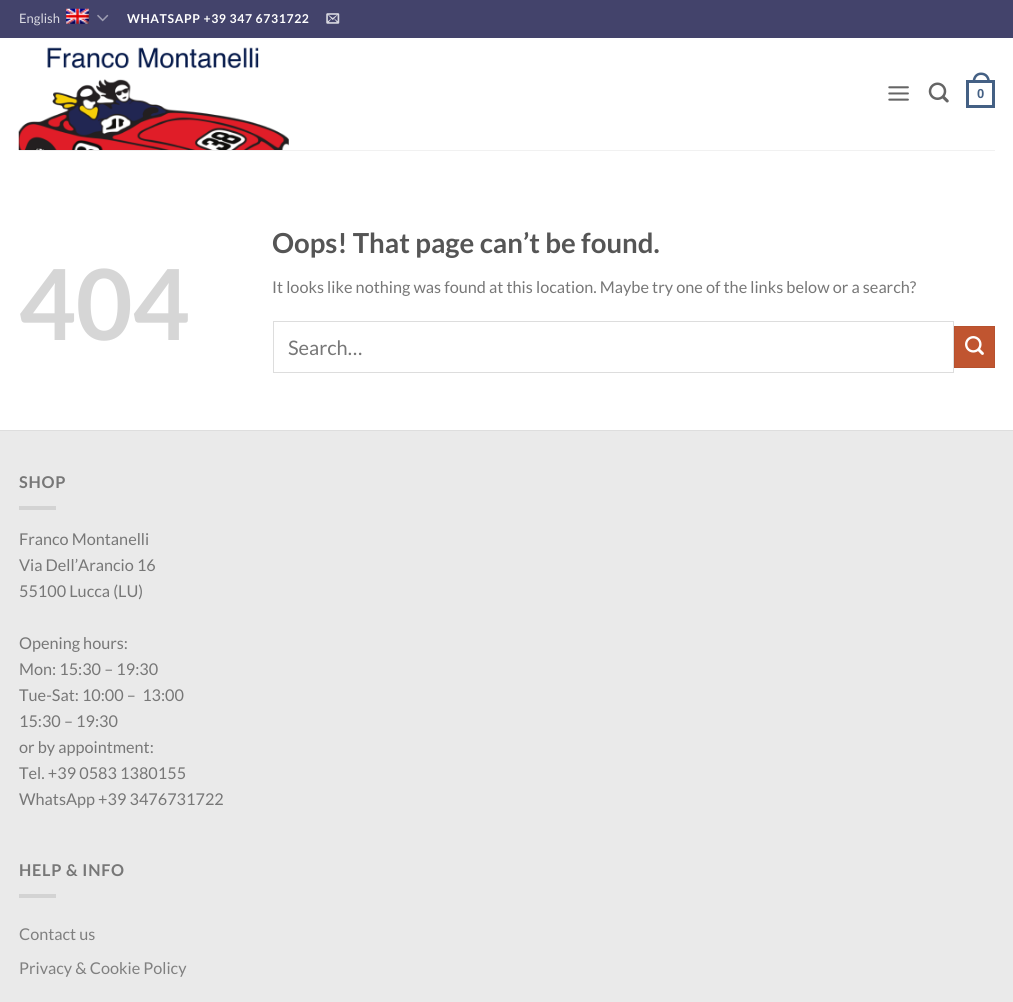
import math
import cairo

surface = cairo.ImageSurface(cairo.Format.RGB24, 1013, 1002)
ctx = cairo.Context(surface)
options = cairo.FontOptions()
options.set_hint_metrics(cairo.HintMetrics.OFF)
options.set_hint_style(cairo.HintStyle.NONE)
ctx.set_font_options(options)
ctx.set_miter_limit(4)


def ink(r, g, b):
    ctx.set_source_rgb(r / 255, g / 255, b / 255)


def write(x, y, s, family, size, color, bold=False, italic=False):
    ctx.select_font_face(family, cairo.FontSlant.ITALIC if italic else cairo.FontSlant.NORMAL, cairo.FontWeight.BOLD if bold else cairo.FontWeight.NORMAL)
    ctx.set_font_size(size)
    ink(*color)
    ctx.move_to(x, y)
    ctx.show_text(s)


def write_spaced(x, y, s, letter, word):
    ctx.move_to(x, y)
    for ch in s:
        ctx.show_text(ch)
        ctx.rel_move_to(letter + word * (ch == ' '), 0)


def block(x, y, w, h, *color):
    ink(*color)
    ctx.rectangle(x, y, w, h)
    ctx.fill()


def paste(path, x, y, w, h):
    ctx.save()
    ctx.set_source_surface(cairo.ImageSurface.create_from_png(path), x, y)
    ctx.rectangle(x, y, w, h)
    ctx.fill()
    ctx.restore()


s1 = dict(family="Lato", size=13, color=(217, 217, 225))
s2 = dict(family="Liberation Sans", size=13, color=(68, 96, 132), bold=True)
s3 = dict(family="Lato", size=98, color=(214, 214, 214), bold=True)
s4 = dict(family="Lato", size=27.6, color=(85, 85, 85), bold=True)
s5 = dict(family="Lato", size=16.25, color=(119, 119, 119))
s6 = dict(family="Lato", size=20, color=(119, 119, 119))
s7 = dict(family="Lato", size=16.25, color=(128, 128, 128))

ink(255, 255, 255)
ctx.paint()
block(0, 0, 1013, 38, 67, 67, 107)
write(19, 23, "English", **s1)
paste("pic1.png", 66, 8, 23, 16)
paste("pic2.png", 97, 14, 12, 8)
ctx.select_font_face("Lato", cairo.FontSlant.NORMAL, cairo.FontWeight.BOLD)
ctx.set_font_size(12.25)
ink(255, 255, 255)
write_spaced(127, 23, "WHATSAPP +39 347 6731722", 0.6, 0)
paste("pic3.png", 326, 13, 14, 11)
paste("pic4.png", 18, 47, 271, 103)
paste("pic5.png", 888, 86, 21, 15)
paste("pic6.png", 928, 82, 21, 21)
ctx.rectangle(967.5, 81.5, 26, 25)
ink(68, 96, 132)
ctx.set_line_width(3)
ctx.stroke()
ctx.set_fill_rule(cairo.FillRule.EVEN_ODD)
ctx.new_path()
ctx.move_to(981, 72.5)
ctx.curve_to(987, 72.5, 990, 77, 990, 82.5)
ctx.line_to(972.5, 82.5)
ctx.curve_to(972.5, 77, 975.5, 72.5, 981, 72.5)
ctx.close_path()
ctx.move_to(981, 75)
ctx.curve_to(985.5, 75, 987.5, 78.5, 987.5, 82.5)
ctx.line_to(975, 82.5)
ctx.curve_to(975, 78.5, 977, 75, 981, 75)
ctx.close_path()
ctx.fill()
write(977, 98, "0", **s2)
block(19, 150, 976, 1, 241, 241, 241)
write(19, 340, "404", **s3)
write(272, 253, "Oops! That page can’t be found.", **s4)
write(272, 293, "It looks like nothing was found at this location. Maybe try one of the links below or a search?", **s5)
ctx.rectangle(273.5, 321.5, 680, 51)
ink(221, 221, 221)
ctx.set_line_width(1)
ctx.stroke()
write(288, 355, "Search…", **s6)
ink(192, 85, 48)
ctx.rectangle(954.5, 326.5, 40, 41)
ctx.fill_preserve()
ink(182, 81, 46)
ctx.stroke()
paste("pic7.png", 965, 336, 19, 19)
block(0, 431, 1013, 571, 234, 234, 234)
block(0, 430, 1013, 1, 222, 222, 222)
ctx.select_font_face("Lato", cairo.FontSlant.NORMAL, cairo.FontWeight.BOLD)
ctx.set_font_size(16.25)
ink(119, 119, 119)
write_spaced(19, 488, "SHOP", 0.75, 0)
block(19, 506, 37, 4, 211, 211, 211)
write(19, 545, "Franco Montanelli", **s5)
write(19, 571, "Via Dell’Arancio 16", **s5)
write(19, 597, "55100 Lucca (LU)", **s5)
write(19, 649, "Opening hours:", **s5)
write(19, 675, "Mon: 15:30 – 19:30", **s5)
write(19, 701, "Tue-Sat: 10:00 –  13:00", **s5)
write(19, 727, "15:30 – 19:30", **s5)
write(19, 753, "or by appointment:", **s5)
write(19, 779, "Tel. +39 0583 1380155", **s5)
write(19, 805, "WhatsApp +39 3476731722", **s5)
ctx.select_font_face("Lato", cairo.FontSlant.NORMAL, cairo.FontWeight.BOLD)
write_spaced(19, 876, "HELP & INFO", 0.75, 0)
block(19, 894, 37, 4, 211, 211, 211)
write(19, 940, "Contact us", **s7)
write(19, 974, "Privacy & Cookie Policy", **s7)
surface.write_to_png("screenshot.png")
